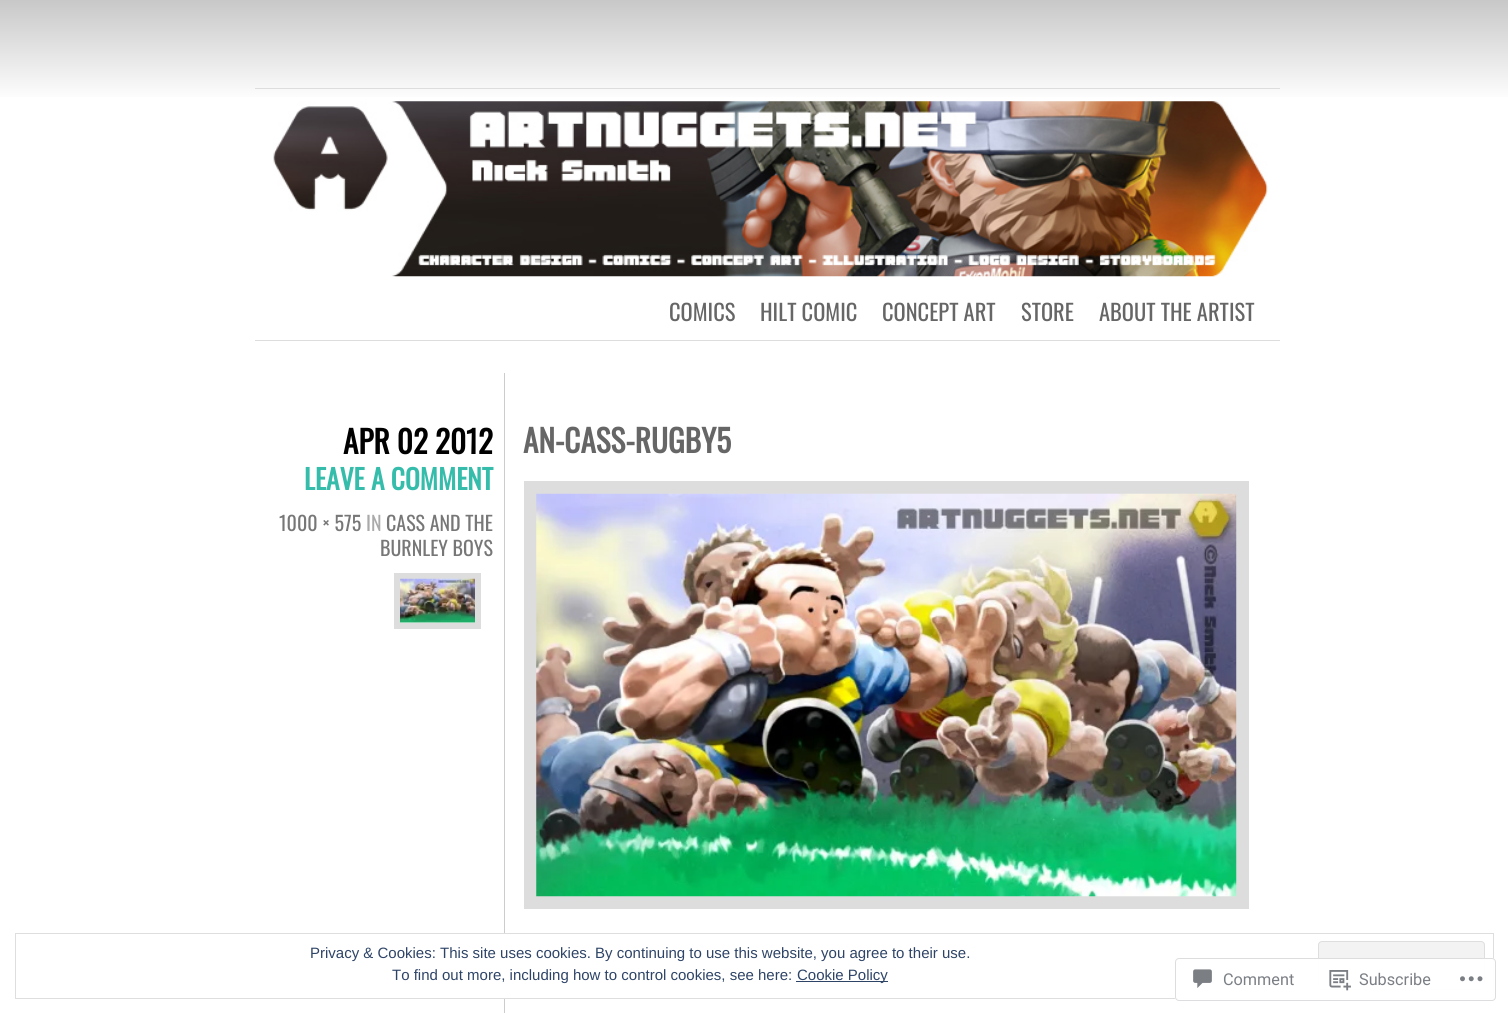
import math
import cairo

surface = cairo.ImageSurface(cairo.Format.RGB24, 1508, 1013)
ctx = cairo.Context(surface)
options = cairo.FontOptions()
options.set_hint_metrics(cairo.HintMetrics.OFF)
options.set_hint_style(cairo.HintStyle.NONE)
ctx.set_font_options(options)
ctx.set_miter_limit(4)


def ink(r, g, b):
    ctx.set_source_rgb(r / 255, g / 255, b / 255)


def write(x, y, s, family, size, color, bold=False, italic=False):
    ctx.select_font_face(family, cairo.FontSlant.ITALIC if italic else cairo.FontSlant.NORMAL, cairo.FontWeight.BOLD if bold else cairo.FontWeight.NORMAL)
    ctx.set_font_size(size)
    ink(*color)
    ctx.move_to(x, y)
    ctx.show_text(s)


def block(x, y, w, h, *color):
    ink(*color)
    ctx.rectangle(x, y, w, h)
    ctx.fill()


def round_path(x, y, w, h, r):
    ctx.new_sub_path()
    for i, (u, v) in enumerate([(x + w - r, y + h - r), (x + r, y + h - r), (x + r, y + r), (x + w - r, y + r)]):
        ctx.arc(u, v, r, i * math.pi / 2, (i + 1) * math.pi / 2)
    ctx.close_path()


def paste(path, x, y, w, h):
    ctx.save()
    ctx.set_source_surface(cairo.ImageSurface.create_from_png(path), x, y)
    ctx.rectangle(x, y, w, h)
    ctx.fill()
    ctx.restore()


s1 = dict(family="Oswald", size=22.5, color=(102, 102, 102))
s2 = dict(family="Oswald", size=31.25, color=(0, 0, 0), bold=True)
s3 = dict(family="Oswald", size=27.5, color=(54, 188, 171), bold=True)
s4 = dict(family="Oswald", size=20, color=(119, 119, 119))
s5 = dict(family="Oswald", size=20, color=(170, 170, 170))
s6 = dict(family="Oswald", size=31.25, color=(102, 102, 102), bold=True)
s7 = dict(family="Liberation Sans", size=15, color=(46, 68, 103))
s8 = dict(family="Roboto", size=16.25, color=(123, 127, 133))

ink(255, 255, 255)
ctx.paint()
gradient = cairo.LinearGradient(754, 0, 754, 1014)
gradient.add_color_stop_rgba(0, 0.784, 0.784, 0.784, 1)
gradient.add_color_stop_rgba(0.1, 1, 1, 1, 1)
ctx.set_source(gradient)
ctx.rectangle(0, 0, 1508, 97)
ctx.fill()
block(255, 88, 1025, 1, 221, 221, 221)
block(255, 340, 1025, 1, 221, 221, 221)
paste("pic1.png", 273, 101, 995, 176)
write(669, 321, "COMICS", **s1)
write(760, 321, "HILT COMIC", **s1)
write(882, 321, "CONCEPT ART", **s1)
write(1021, 321, "STORE", **s1)
write(1099, 321, "ABOUT THE ARTIST", **s1)
block(504, 373, 1, 640, 204, 204, 204)
write(343, 454, "APR 02 2012", **s2)
write(304, 490, "LEAVE A COMMENT", **s3)
write(279, 531, "1000 × 575", **s4)
write(366, 531, "IN", **s5)
write(386, 531, "CASS AND THE", **s4)
write(380, 556, "BURNLEY BOYS", **s4)
ctx.rectangle(397, 576, 81, 50)
ink(221, 221, 221)
ctx.set_line_width(6)
ctx.stroke()
paste("pic2.png", 400, 578, 75, 45)
write(523, 453, "AN-CASS-RUGBY5", **s6)
ctx.rectangle(530.5, 487.5, 712, 415)
ink(221, 221, 221)
ctx.set_line_width(13)
ctx.stroke()
paste("pic3.png", 536, 493, 701, 404)
block(504, 934, 1, 64, 255, 255, 255)
ctx.rectangle(15.5, 933.5, 1478, 65)
ink(222, 222, 222)
ctx.set_line_width(1)
ctx.stroke()
write(310, 958, "Privacy & Cookies: This site uses cookies. By continuing to use this website, you agree to their use.", **s7)
ink(243, 243, 243)
round_path(1318.5, 941.5, 166, 48, 3.5)
ctx.fill_preserve()
ink(222, 222, 222)
ctx.stroke()
write(392, 980, "To find out more, including how to control cookies, see here:", **s7)
block(796, 981, 92, 1, 46, 68, 103)
write(797, 980, "Cookie Policy", **s7)
ctx.set_source_rgba(1, 1, 1, 0.98)
round_path(1175, 958, 321, 43, 4)
ctx.fill()
round_path(1175.5, 958.5, 320, 42, 3.5)
ctx.set_source_rgba(0.863, 0.863, 0.871, 0.98)
ctx.stroke()
paste("pic4.png", 1193, 969, 19, 19)
write(1223, 985, "Comment", **s8)
paste("pic5.png", 1329, 970, 22, 21)
write(1359, 985, "Subscribe", **s8)
paste("pic6.png", 1460, 976, 23, 6)
surface.write_to_png("screenshot.png")
